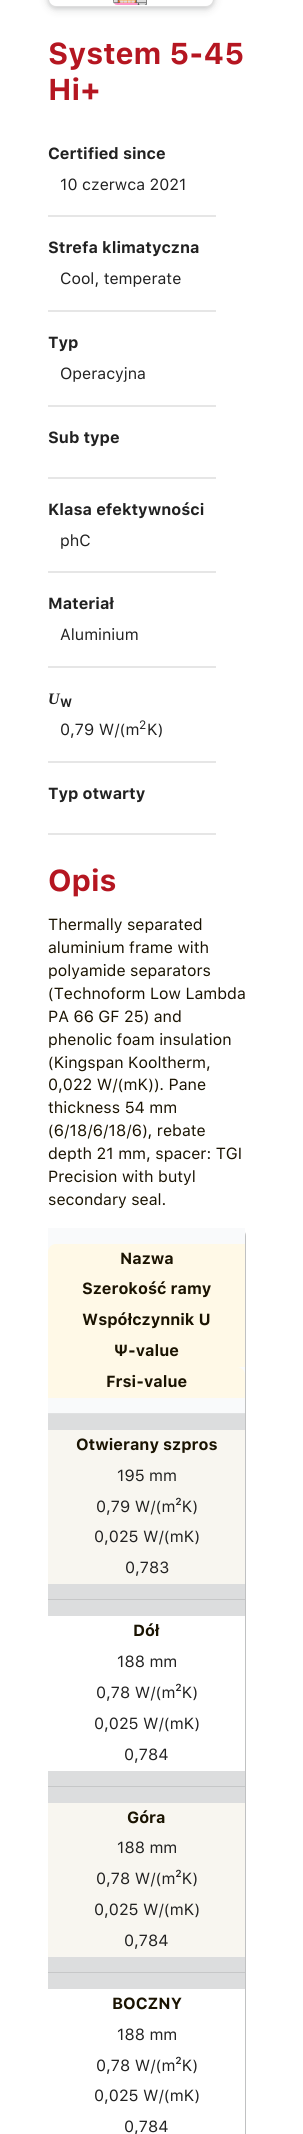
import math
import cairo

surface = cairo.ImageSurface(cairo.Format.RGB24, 303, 2134)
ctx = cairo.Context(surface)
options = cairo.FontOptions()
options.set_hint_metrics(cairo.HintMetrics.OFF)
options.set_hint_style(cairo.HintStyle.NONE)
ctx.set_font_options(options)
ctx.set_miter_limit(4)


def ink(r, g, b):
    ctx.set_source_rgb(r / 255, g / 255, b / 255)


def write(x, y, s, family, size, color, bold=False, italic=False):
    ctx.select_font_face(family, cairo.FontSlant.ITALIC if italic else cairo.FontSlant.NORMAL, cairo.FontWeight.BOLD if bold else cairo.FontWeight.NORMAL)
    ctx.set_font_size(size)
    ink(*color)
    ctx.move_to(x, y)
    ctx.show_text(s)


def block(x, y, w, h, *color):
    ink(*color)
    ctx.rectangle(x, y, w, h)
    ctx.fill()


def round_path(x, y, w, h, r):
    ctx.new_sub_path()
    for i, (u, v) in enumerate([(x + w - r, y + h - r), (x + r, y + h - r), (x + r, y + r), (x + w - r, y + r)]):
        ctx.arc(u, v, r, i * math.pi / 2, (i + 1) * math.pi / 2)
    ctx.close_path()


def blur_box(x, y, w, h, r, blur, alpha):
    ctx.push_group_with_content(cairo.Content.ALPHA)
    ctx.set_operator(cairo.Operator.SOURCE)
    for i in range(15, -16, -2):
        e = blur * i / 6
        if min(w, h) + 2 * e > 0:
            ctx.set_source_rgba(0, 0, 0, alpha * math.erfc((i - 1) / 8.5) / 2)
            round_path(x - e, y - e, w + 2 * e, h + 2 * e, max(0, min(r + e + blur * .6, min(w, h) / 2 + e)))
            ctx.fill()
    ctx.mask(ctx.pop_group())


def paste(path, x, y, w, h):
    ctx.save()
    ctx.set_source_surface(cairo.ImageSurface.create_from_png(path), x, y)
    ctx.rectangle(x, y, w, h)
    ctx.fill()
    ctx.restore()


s1 = dict(family="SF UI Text", size=30, color=(181, 22, 33), bold=True)
s2 = dict(family="SF UI Text", size=16, color=(33, 33, 33), bold=True)
s3 = dict(family="SF UI Text", size=16, color=(33, 33, 33))
s4 = dict(family="Liberation Serif", size=16, color=(33, 33, 33), bold=True, italic=True)
s5 = dict(family="SF UI Text", size=12, color=(33, 33, 33), bold=True)
s6 = dict(family="SF UI Text", size=12, color=(33, 33, 33))
s7 = dict(family="SF UI Text", size=16, color=(26, 19, 1))
s8 = dict(family="SF UI Text", size=16, color=(26, 19, 1), bold=True)

ink(255, 255, 255)
ctx.paint()
ink(34, 36, 38)
blur_box(48, -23, 166, 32, 8, 5, 0.15)
blur_box(48, -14, 166, 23, 8, 2, 0.12)
ink(255, 255, 255)
round_path(48, -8, 166, 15, 8)
ctx.fill()
round_path(48.5, -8.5, 165, 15, 7.5)
ctx.set_source_rgba(0.133, 0.141, 0.149, 0.15)
ctx.set_line_width(1)
ctx.stroke()
paste("pic1.png", 113, 0, 34, 5)
write(48, 64, "System 5-45", **s1)
write(48, 100, "Hi+", **s1)
block(48, 215, 168, 2, 230, 230, 230)
write(48, 159, "Certified since", **s2)
write(60, 190, "10 czerwca 2021", **s3)
block(48, 310, 168, 2, 230, 230, 230)
write(48, 253, "Strefa klimatyczna", **s2)
write(60, 284, "Cool, temperate", **s3)
block(48, 405, 168, 2, 230, 230, 230)
write(48, 348, "Typ", **s2)
write(60, 379, "Operacyjna", **s3)
block(48, 477, 168, 2, 230, 230, 230)
write(48, 443, "Sub type", **s2)
block(48, 571, 168, 2, 230, 230, 230)
write(48, 515, "Klasa efektywności", **s2)
write(60, 546, "phC", **s3)
block(48, 666, 168, 2, 230, 230, 230)
write(48, 609, "Materiał", **s2)
write(60, 640, "Aluminium", **s3)
block(48, 761, 168, 2, 230, 230, 230)
write(48, 704, "U", **s4)
write(60, 707, "W", **s5)
write(60, 735, "0,79 W/(m", **s3)
write(139, 729, "2", **s6)
write(147, 735, "K)", **s3)
block(48, 833, 168, 2, 230, 230, 230)
write(48, 799, "Typ otwarty", **s2)
write(48, 891, "Opis", **s1)
write(48, 930, "Thermally separated", **s7)
write(48, 953, "aluminium frame with", **s7)
write(48, 976, "polyamide separators", **s7)
write(48, 999, "(Technoform Low Lambda", **s7)
write(48, 1022, "PA 66 GF 25) and", **s7)
write(48, 1045, "phenolic foam insulation", **s7)
write(48, 1068, "(Kingspan Kooltherm,", **s7)
write(48, 1090, "0,022 W/(mK)). Pane", **s7)
write(48, 1113, "thickness 54 mm", **s7)
write(48, 1136, "(6/18/6/18/6), rebate", **s7)
write(48, 1159, "depth 21 mm, spacer: TGI", **s7)
write(48, 1182, "Precision with butyl", **s7)
write(48, 1205, "secondary seal.", **s7)
ink(220, 221, 222)
round_path(48, 1228, 198, 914, 8)
ctx.fill()
ctx.set_source_rgba(0.133, 0.141, 0.149, 0.15)
ctx.set_fill_rule(cairo.FillRule.EVEN_ODD)
ctx.new_path()
ctx.move_to(56, 1228)
ctx.line_to(238, 1228)
ctx.curve_to(242, 1228, 246, 1232, 246, 1236)
ctx.line_to(246, 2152)
ctx.curve_to(246, 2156, 242, 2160, 238, 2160)
ctx.line_to(56, 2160)
ctx.curve_to(52, 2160, 48, 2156, 48, 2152)
ctx.line_to(48, 1236)
ctx.curve_to(48, 1232, 52, 1228, 56, 1228)
ctx.close_path()
ctx.move_to(56, 1228)
ctx.line_to(238, 1228)
ctx.curve_to(242, 1228, 245, 1232, 245, 1236)
ctx.line_to(245, 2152)
ctx.curve_to(245, 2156, 242, 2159, 238, 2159)
ctx.line_to(56, 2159)
ctx.curve_to(52, 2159, 48, 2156, 48, 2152)
ctx.line_to(48, 1236)
ctx.curve_to(48, 1232, 52, 1228, 56, 1228)
ctx.close_path()
ctx.fill()
block(48, 1228, 197, 185, 249, 250, 251)
block(48, 1413, 197, 1, 224, 225, 226)
ink(255, 249, 231)
ctx.new_path()
ctx.move_to(56, 1244)
ctx.line_to(245, 1244)
ctx.line_to(245, 1274)
ctx.line_to(48, 1274)
ctx.line_to(48, 1252)
ctx.curve_to(48, 1247.5, 51.5, 1244, 56, 1244)
ctx.close_path()
ctx.fill()
write(120, 1264, "Nazwa", **s8)
block(48, 1274, 197, 93, 255, 249, 231)
write(82, 1294, "Szerokość ramy", **s8)
write(82, 1325, "Współczynnik U", **s8)
write(114, 1356, "Ψ-value", **s8)
ink(255, 249, 231)
ctx.new_path()
ctx.move_to(48, 1367)
ctx.line_to(237, 1367)
ctx.curve_to(241.5, 1367, 245, 1370.5, 245, 1375)
ctx.line_to(245, 1398)
ctx.line_to(48, 1398)
ctx.close_path()
ctx.fill()
write(106, 1387, "Frsi-value", **s8)
block(48, 1599, 197, 1, 198, 199, 200)
block(48, 1430, 197, 154, 248, 246, 240)
write(76, 1450, "Otwierany szpros", **s8)
write(117, 1481, "195 mm", **s3)
write(96, 1512, "0,79 W/(m²K)", **s3)
write(94, 1542, "0,025 W/(mK)", **s3)
write(125, 1573, "0,783", **s3)
block(48, 1786, 197, 1, 198, 199, 200)
block(48, 1616, 197, 155, 255, 255, 255)
write(133, 1636, "Dół", **s8)
write(117, 1667, "188 mm", **s3)
write(96, 1698, "0,78 W/(m²K)", **s3)
write(94, 1729, "0,025 W/(mK)", **s3)
write(124, 1760, "0,784", **s3)
block(48, 1972, 197, 1, 198, 199, 200)
block(48, 1803, 197, 154, 248, 246, 240)
write(127, 1823, "Góra", **s8)
write(117, 1853, "188 mm", **s3)
write(96, 1884, "0,78 W/(m²K)", **s3)
write(94, 1915, "0,025 W/(mK)", **s3)
write(124, 1946, "0,784", **s3)
block(48, 1989, 197, 145, 255, 255, 255)
write(112, 2009, "BOCZNY", **s8)
write(117, 2040, "188 mm", **s3)
write(96, 2071, "0,78 W/(m²K)", **s3)
write(94, 2101, "0,025 W/(mK)", **s3)
write(124, 2132, "0,784", **s3)
surface.write_to_png("screenshot.png")
